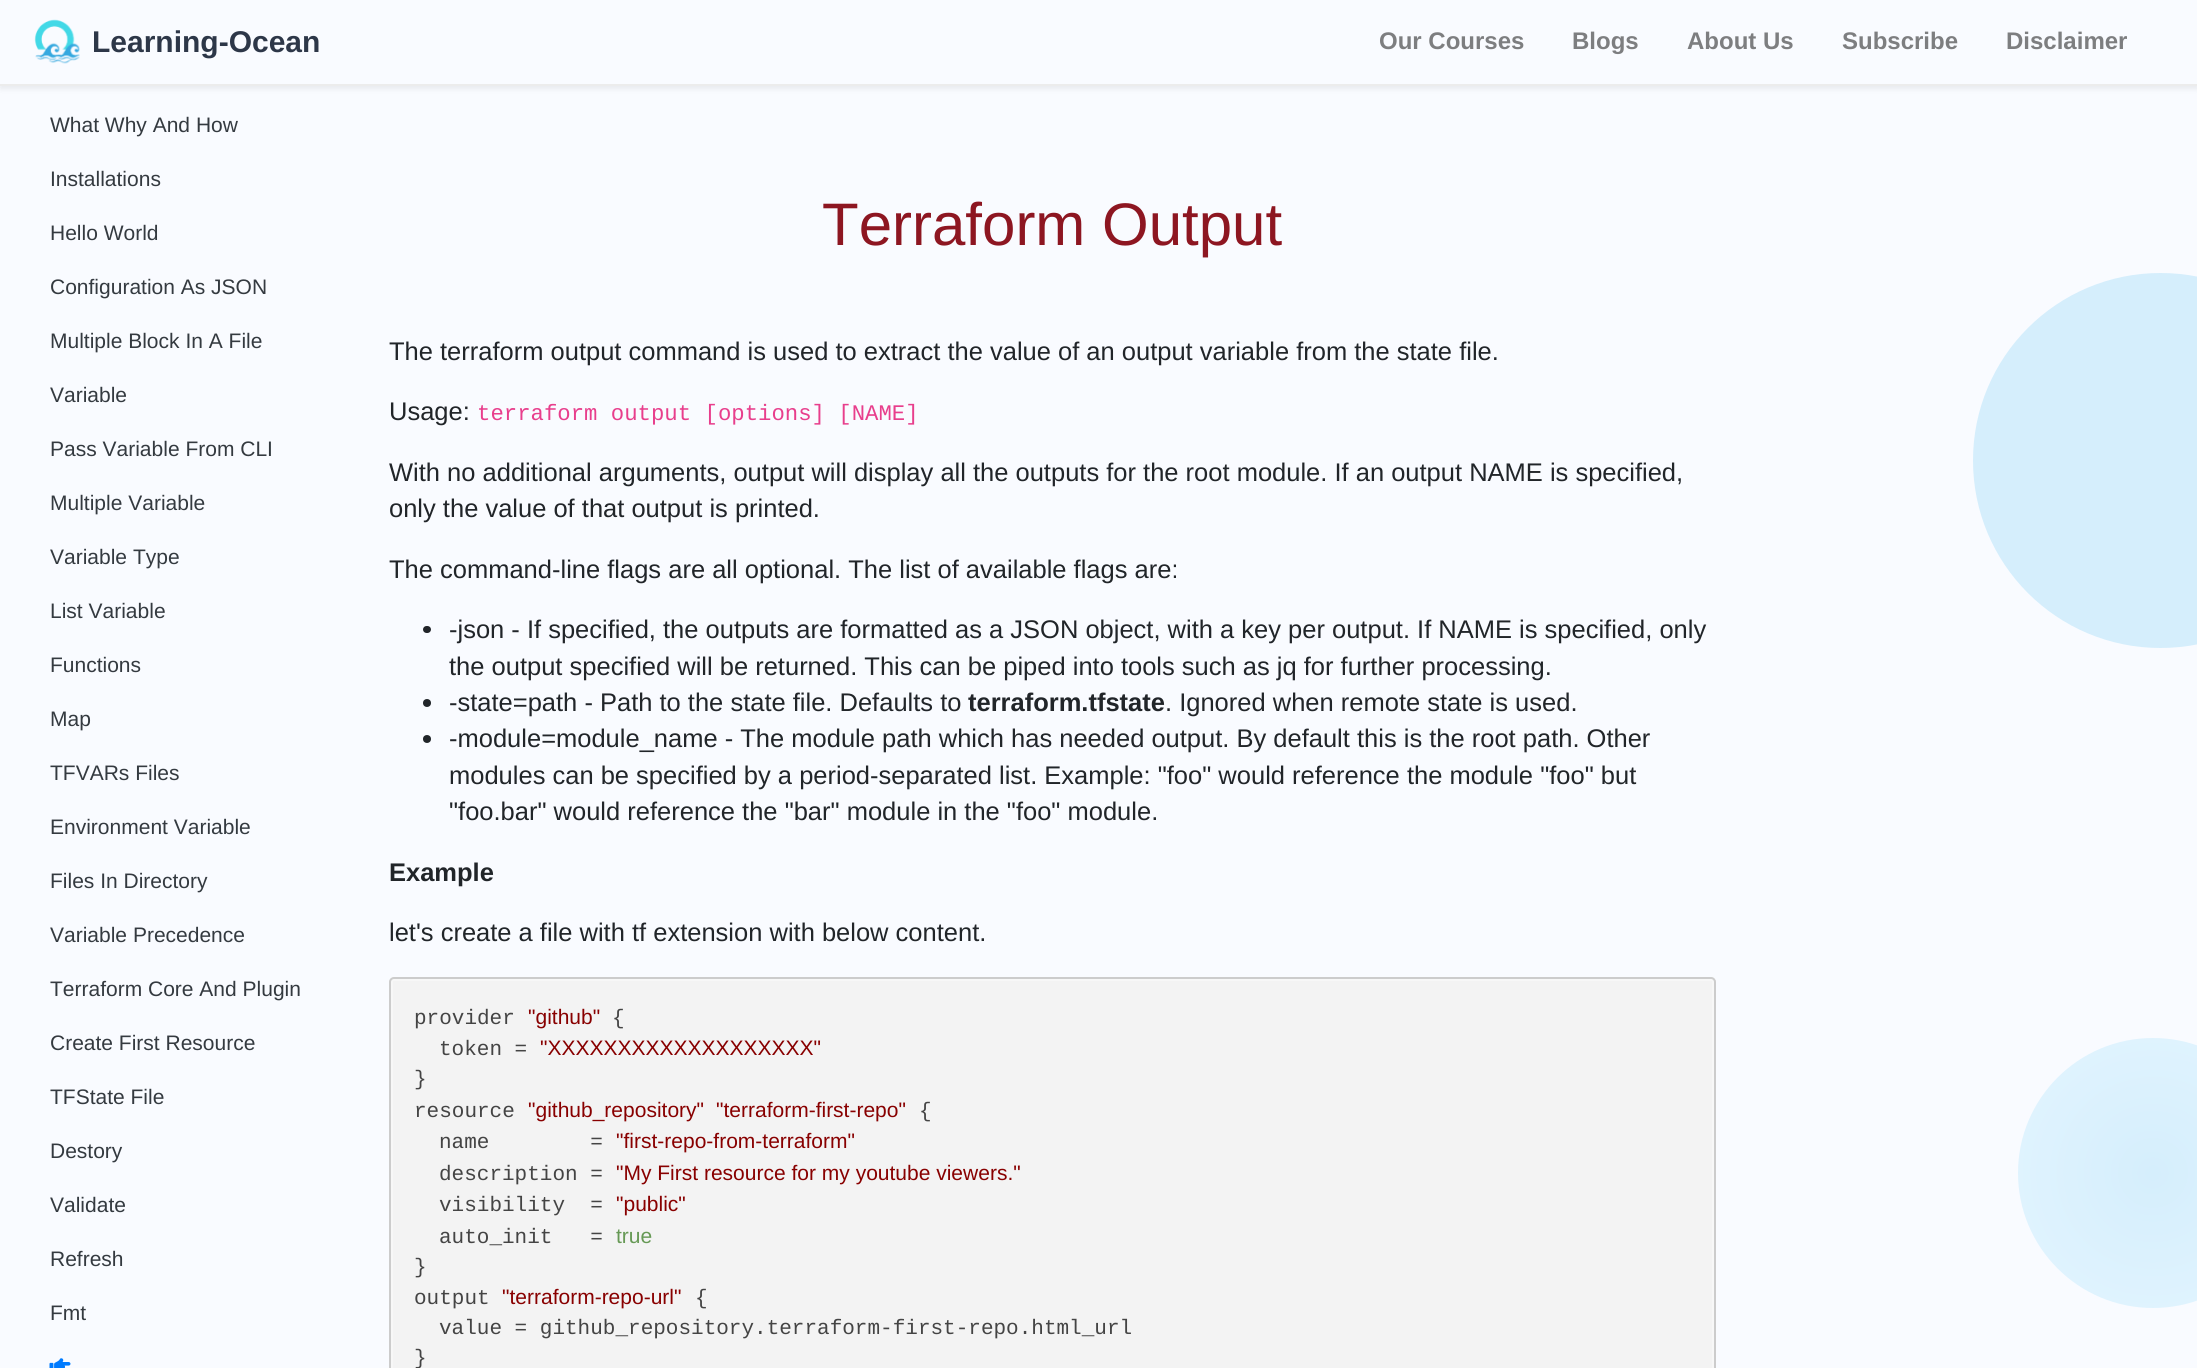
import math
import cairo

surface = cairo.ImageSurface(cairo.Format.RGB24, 2197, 1368)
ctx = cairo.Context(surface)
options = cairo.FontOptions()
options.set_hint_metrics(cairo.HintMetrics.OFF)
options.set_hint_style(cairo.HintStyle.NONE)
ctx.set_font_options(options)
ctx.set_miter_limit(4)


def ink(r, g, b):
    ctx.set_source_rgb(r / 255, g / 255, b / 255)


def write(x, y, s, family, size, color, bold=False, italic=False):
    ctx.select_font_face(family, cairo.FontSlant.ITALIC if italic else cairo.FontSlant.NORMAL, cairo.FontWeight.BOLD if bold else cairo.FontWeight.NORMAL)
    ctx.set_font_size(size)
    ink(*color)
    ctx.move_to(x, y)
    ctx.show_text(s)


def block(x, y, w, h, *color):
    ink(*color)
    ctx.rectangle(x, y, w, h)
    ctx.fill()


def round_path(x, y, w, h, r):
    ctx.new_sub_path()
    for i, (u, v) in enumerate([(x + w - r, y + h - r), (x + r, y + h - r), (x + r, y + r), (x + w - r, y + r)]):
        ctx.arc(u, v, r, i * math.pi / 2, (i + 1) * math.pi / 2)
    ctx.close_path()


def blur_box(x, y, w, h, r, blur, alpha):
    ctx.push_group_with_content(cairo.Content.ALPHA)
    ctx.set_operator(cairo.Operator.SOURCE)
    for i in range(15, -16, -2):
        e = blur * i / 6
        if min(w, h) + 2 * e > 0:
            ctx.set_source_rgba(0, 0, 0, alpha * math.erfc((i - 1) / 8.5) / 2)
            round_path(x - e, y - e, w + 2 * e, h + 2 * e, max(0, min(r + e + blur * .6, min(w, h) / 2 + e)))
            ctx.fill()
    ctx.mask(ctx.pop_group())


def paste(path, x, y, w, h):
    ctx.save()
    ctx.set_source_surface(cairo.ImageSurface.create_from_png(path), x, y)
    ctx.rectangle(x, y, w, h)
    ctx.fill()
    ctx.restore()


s1 = dict(family="Liberation Sans", size=30, color=(45, 55, 72), bold=True)
s2 = dict(family="Liberation Sans", size=24, color=(125, 126, 128), bold=True)
s3 = dict(family="Liberation Sans", size=21, color=(52, 58, 64))
s4 = dict(family="Liberation Sans", size=60, color=(141, 22, 33))
s5 = dict(family="Liberation Sans", size=25.5, color=(33, 37, 41))
s6 = dict(family="Liberation Mono", size=22.3, color=(232, 62, 140))
s7 = dict(family="Liberation Sans", size=25.5, color=(33, 37, 41), bold=True)
s8 = dict(family="Liberation Mono", size=21, color=(68, 68, 68))
s9 = dict(family="Liberation Sans", size=21, color=(136, 0, 0))
s10 = dict(family="Liberation Sans", size=21, color=(102, 153, 85))

ink(249, 251, 255)
ctx.paint()
ink(0, 0, 0)
blur_box(0, 3, 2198, 86, 0, 3, 0.07)
block(0, 0, 2197, 84, 249, 251, 255)
block(0, 84, 2197, 2, 236, 236, 236)
paste("pic1.png", 34, 19, 46, 45)
write(92, 52, "Learning-Ocean", **s1)
write(1379, 49, "Our Courses", **s2)
write(1572, 49, "Blogs", **s2)
write(1687, 49, "About Us", **s2)
write(1842, 49, "Subscribe", **s2)
write(2006, 49, "Disclaimer", **s2)
write(50, 132, "What Why And How", **s3)
write(50, 186, "Installations", **s3)
write(50, 240, "Hello World", **s3)
write(50, 294, "Configuration As JSON", **s3)
write(50, 348, "Multiple Block In A File", **s3)
write(50, 402, "Variable", **s3)
write(50, 456, "Pass Variable From CLI", **s3)
write(50, 510, "Multiple Variable", **s3)
write(50, 564, "Variable Type", **s3)
write(50, 618, "List Variable", **s3)
write(50, 672, "Functions", **s3)
write(50, 726, "Map", **s3)
write(50, 780, "TFVARs Files", **s3)
write(50, 834, "Environment Variable", **s3)
write(50, 888, "Files In Directory", **s3)
write(50, 942, "Variable Precedence", **s3)
write(50, 996, "Terraform Core And Plugin", **s3)
write(50, 1050, "Create First Resource", **s3)
write(50, 1104, "TFState File", **s3)
write(50, 1158, "Destory", **s3)
write(50, 1212, "Validate", **s3)
write(50, 1266, "Refresh", **s3)
write(50, 1320, "Fmt", **s3)
paste("pic2.png", 49, 1358, 22, 10)
write(822, 245, "Terraform Output", **s4)
write(389, 360, "The terraform output command is used to extract the value of an output variable from the state file.", **s5)
write(389, 420, "Usage:", **s5)
write(477, 420, "terraform output [options] [NAME]", **s6)
write(389, 481, "With no additional arguments, output will display all the outputs for the root module. If an output NAME is specified,", **s5)
write(389, 517, "only the value of that output is printed.", **s5)
write(389, 578, "The command-line flags are all optional. The list of available flags are:", **s5)
round_path(423, 626, 8, 7, 3.5)
ctx.fill()
write(449, 638, "-json - If specified, the outputs are formatted as a JSON object, with a key per output. If NAME is specified, only", **s5)
write(449, 675, "the output specified will be returned. This can be piped into tools such as jq for further processing.", **s5)
ctx.new_path()
ctx.arc(427, 703, 4, 0, 2 * math.pi)
ctx.fill()
write(449, 711, "-state=path - Path to the state file. Defaults to", **s5)
write(968, 711, "terraform.tfstate", **s7)
write(1165, 711, ". Ignored when remote state is used.", **s5)
ctx.new_path()
ctx.arc(427, 739, 4, 0, 2 * math.pi)
ctx.fill()
write(449, 747, "-module=module_name - The module path which has needed output. By default this is the root path. Other", **s5)
write(449, 784, "modules can be specified by a period-separated list. Example: \"foo\" would reference the module \"foo\" but", **s5)
write(449, 820, "\"foo.bar\" would reference the \"bar\" module in the \"foo\" module.", **s5)
write(389, 881, "Example", **s7)
write(389, 941, "let's create a file with tf extension with below content.", **s5)
ink(247, 247, 247)
ctx.new_path()
ctx.move_to(394, 977)
ctx.line_to(1711, 977)
ctx.curve_to(1714, 977, 1716, 979, 1716, 982)
ctx.line_to(1716, 1368)
ctx.line_to(389, 1368)
ctx.line_to(389, 982)
ctx.curve_to(389, 979, 391, 977, 394, 977)
ctx.close_path()
ctx.fill()
round_path(390, 978, 1325, 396, 4)
ink(204, 204, 204)
ctx.stroke()
block(393, 981, 1319, 387, 243, 243, 243)
write(414, 1024, "provider", **s8)
write(528, 1024, "\"github\"", **s9)
write(612, 1024, "{", **s8)
write(439, 1055, "token =", **s8)
write(540, 1055, "\"XXXXXXXXXXXXXXXXXXX\"", **s9)
write(414, 1085, "}", **s8)
write(414, 1117, "resource", **s8)
write(528, 1117, "\"github_repository\"", **s9)
write(716, 1117, "\"terraform-first-repo\"", **s9)
write(919, 1117, "{", **s8)
write(439, 1148, "name        =", **s8)
write(616, 1148, "\"first-repo-from-terraform\"", **s9)
write(439, 1180, "description =", **s8)
write(616, 1180, "\"My First resource for my youtube viewers.\"", **s9)
write(439, 1211, "visibility  =", **s8)
write(616, 1211, "\"public\"", **s9)
write(439, 1243, "auto_init   =", **s8)
write(616, 1243, "true", **s10)
write(414, 1273, "}", **s8)
write(414, 1304, "output", **s8)
write(502, 1304, "\"terraform-repo-url\"", **s9)
write(695, 1304, "{", **s8)
write(439, 1334, "value = github_repository.terraform-first-repo.html_url", **s8)
write(414, 1364, "}", **s8)
ink(213, 238, 252)
ctx.new_path()
ctx.arc(2160.5, 460.5, 187.5, 0, 2 * math.pi)
ctx.fill()
gradient = cairo.RadialGradient(2153, 1173, 0, 2153, 1173, 191)
gradient.add_color_stop_rgba(0, 0.835, 0.933, 0.988, 1)
gradient.add_color_stop_rgba(1, 0.89, 0.961, 1, 1)
ctx.set_source(gradient)
ctx.arc(2153, 1173, 135, 0, 2 * math.pi)
ctx.fill()
surface.write_to_png("screenshot.png")
